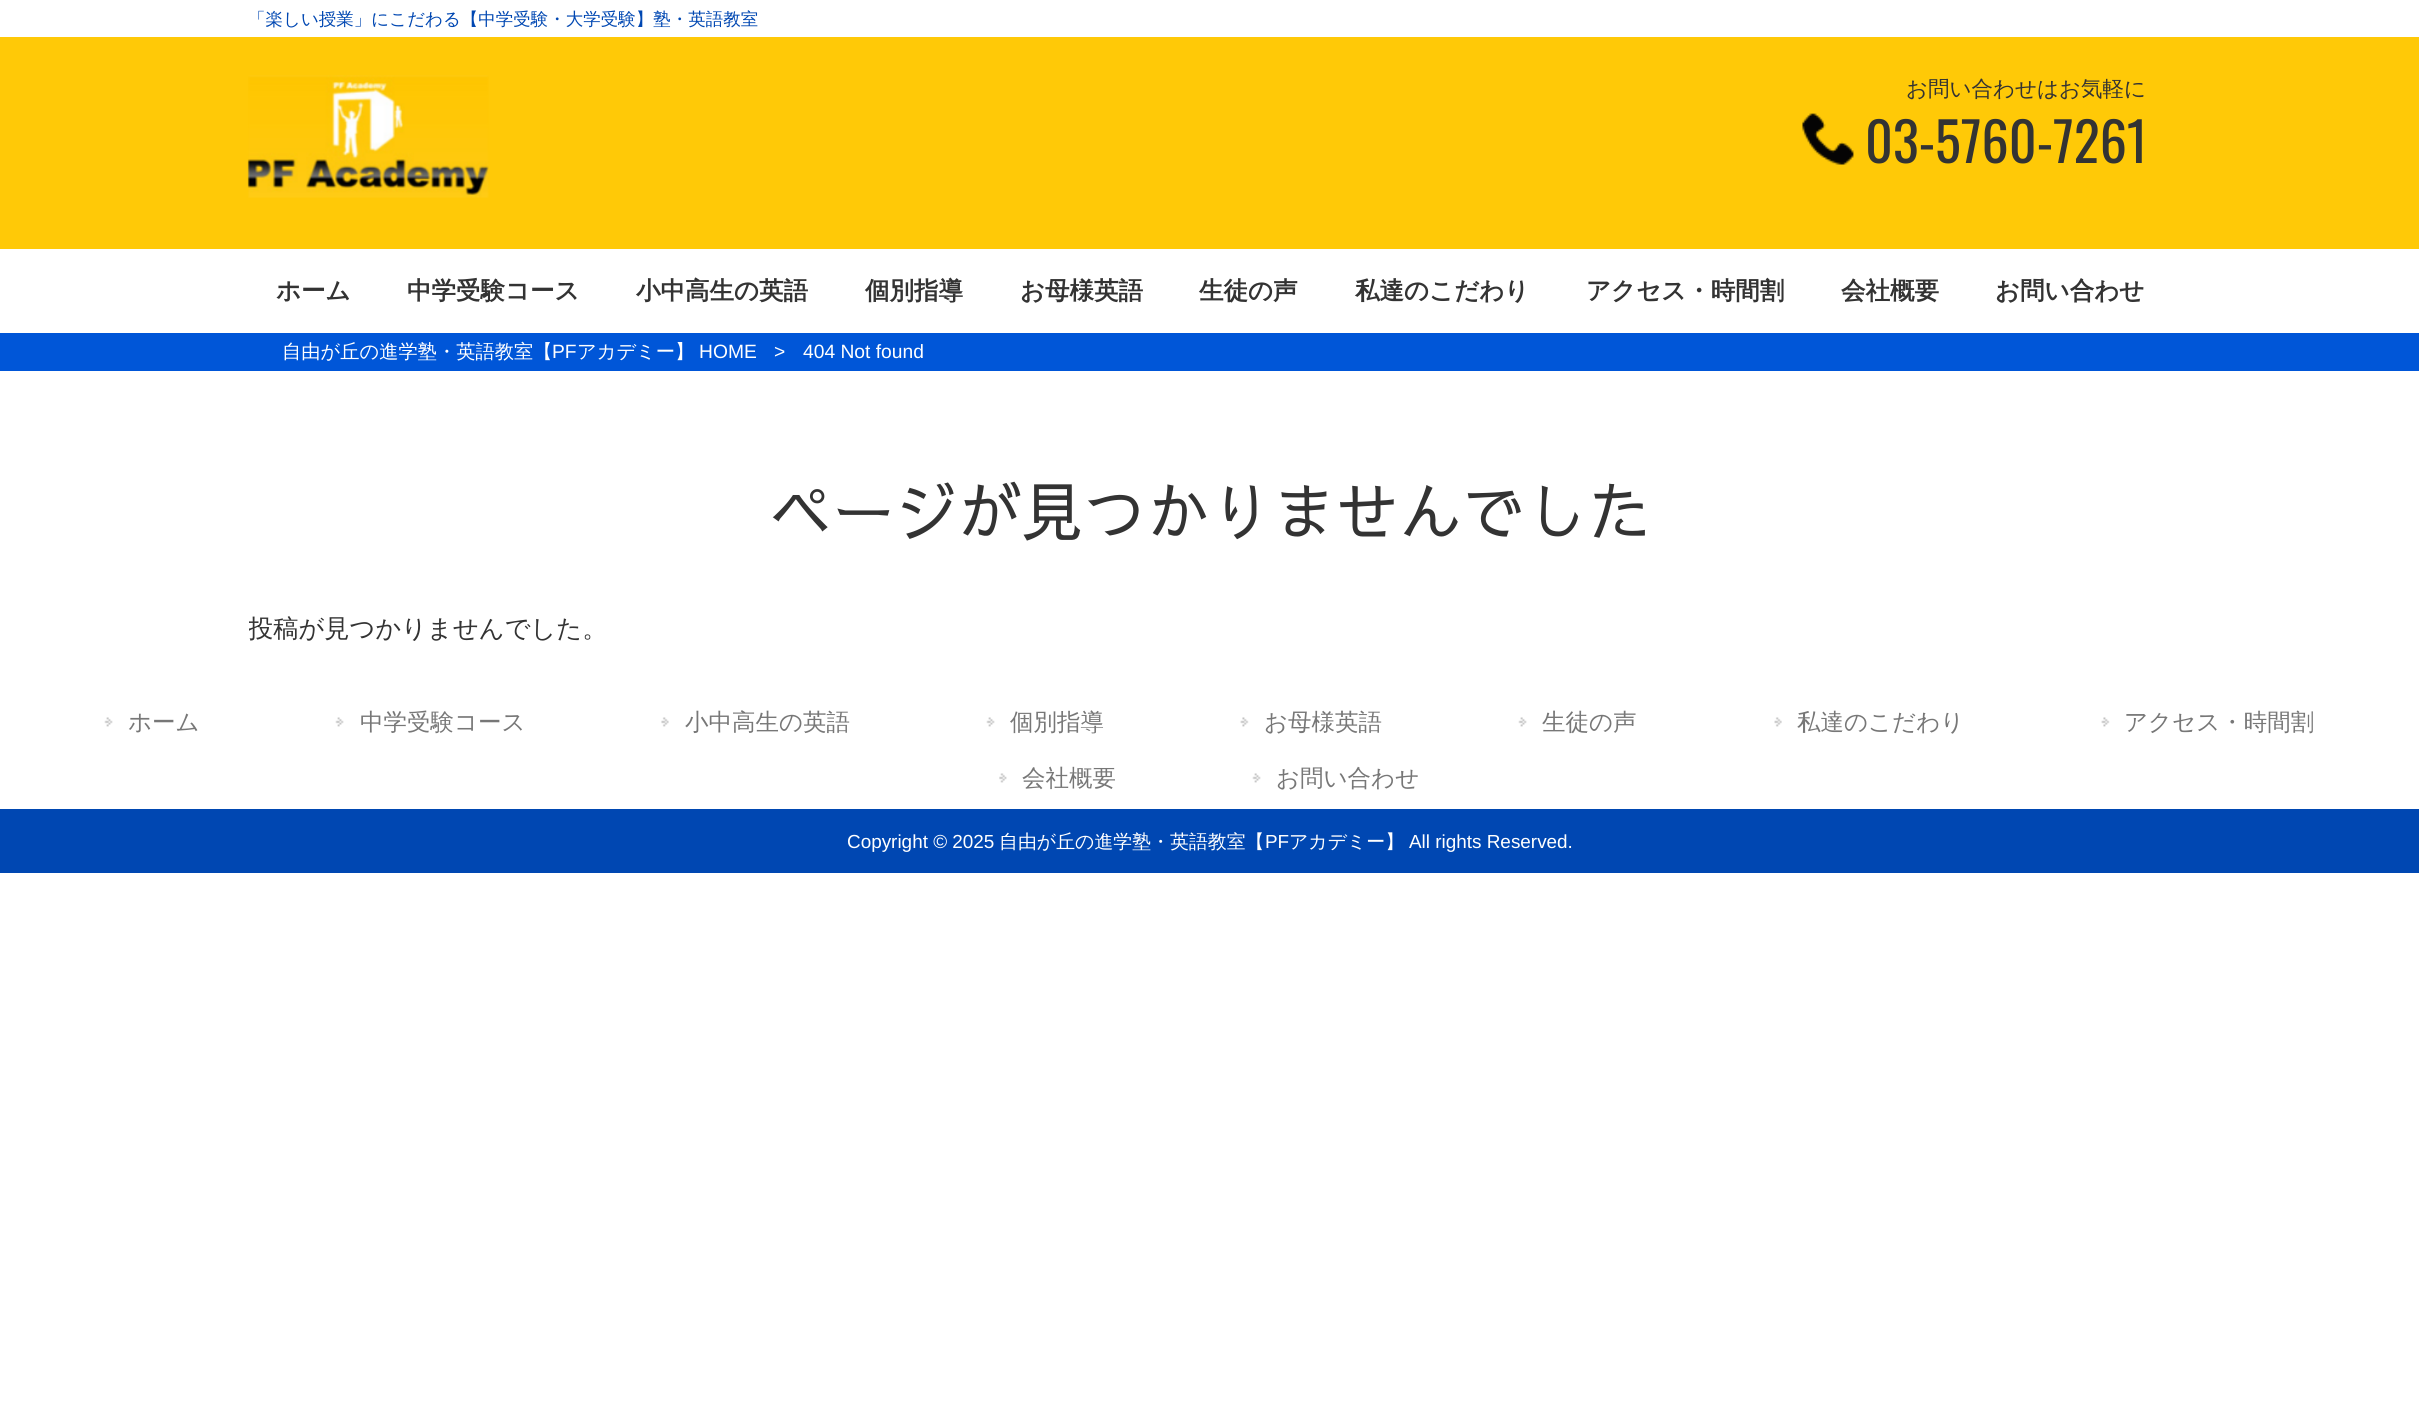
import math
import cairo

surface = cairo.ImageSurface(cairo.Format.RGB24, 2419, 1407)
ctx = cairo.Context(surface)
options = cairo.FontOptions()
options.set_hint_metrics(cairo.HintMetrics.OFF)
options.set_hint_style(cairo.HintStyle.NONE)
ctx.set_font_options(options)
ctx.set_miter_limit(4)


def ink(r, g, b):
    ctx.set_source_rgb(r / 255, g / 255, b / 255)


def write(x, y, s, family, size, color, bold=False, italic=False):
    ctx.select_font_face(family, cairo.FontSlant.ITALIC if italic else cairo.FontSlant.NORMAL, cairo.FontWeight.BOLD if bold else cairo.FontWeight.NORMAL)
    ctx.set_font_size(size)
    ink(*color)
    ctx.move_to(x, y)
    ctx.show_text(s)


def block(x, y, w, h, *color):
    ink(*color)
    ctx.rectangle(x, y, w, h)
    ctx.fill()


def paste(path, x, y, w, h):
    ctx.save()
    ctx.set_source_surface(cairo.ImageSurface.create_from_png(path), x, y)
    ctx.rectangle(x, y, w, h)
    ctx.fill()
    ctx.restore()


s1 = dict(family="WenQuanYi Zen Hei Medium", size=17.5, color=(0, 71, 178))
s2 = dict(family="WenQuanYi Zen Hei Medium", size=21.5, color=(51, 51, 51))
s3 = dict(family="Oswald", size=54, color=(51, 51, 51))
s4 = dict(family="WenQuanYi Zen Hei", size=24.5, color=(51, 51, 51), bold=True)
s5 = dict(family="WenQuanYi Zen Hei Medium", size=19.25, color=(255, 255, 255))
s6 = dict(family="Liberation Sans", size=19.25, color=(255, 255, 255))
s7 = dict(family="Sawarabi Gothic", size=63, color=(51, 51, 51))
s8 = dict(family="WenQuanYi Zen Hei Medium", size=25.25, color=(51, 51, 51))
s9 = dict(family="WenQuanYi Zen Hei Medium", size=23.5, color=(119, 119, 119))
s10 = dict(family="Liberation Sans", size=18.9, color=(255, 255, 255))
s11 = dict(family="WenQuanYi Zen Hei Medium", size=18.9, color=(255, 255, 255))

ink(255, 255, 255)
ctx.paint()
block(0, 37, 2419, 212, 255, 201, 7)
write(248, 25, "「楽しい授業」にこだわる【中学受験・大学受験】塾・英語教室", **s1)
paste("pic1.png", 247, 75, 242, 123)
write(1906, 96, "お問い合わせはお気軽に", **s2)
paste("pic2.png", 1802, 113, 52, 52)
write(1865, 163, "03-5760-7261", **s3)
write(276, 299, "ホーム", **s4)
write(407, 299, "中学受験コース", **s4)
write(636, 299, "小中高生の英語", **s4)
write(865, 299, "個別指導", **s4)
write(1020, 299, "お母様英語", **s4)
write(1199, 299, "生徒の声", **s4)
write(1355, 299, "私達のこだわり", **s4)
write(1586, 299, "アクセス・時間割", **s4)
write(1841, 299, "会社概要", **s4)
write(1995, 299, "お問い合わせ", **s4)
block(0, 333, 2419, 38, 0, 86, 216)
write(282, 358, "自由が丘の進学塾・英語教室【", **s5)
write(552, 358, "PF", **s6)
write(577, 358, "アカデミー】", **s5)
write(699, 358, "HOME", **s6)
write(774, 358, ">", **s6)
write(803, 358, "404 Not found", **s6)
write(769, 536, "ページが見つかりませんでした", **s7)
ctx.save()
ctx.rectangle(249, 371, 1925, 313)
ctx.clip()
write(248, 637, "投稿が見つかりませんでした。", **s8)
ctx.restore()
paste("pic3.png", 104, 717, 9, 10)
write(128, 730, "ホーム", **s9)
paste("pic4.png", 335, 717, 9, 10)
write(360, 730, "中学受験コース", **s9)
paste("pic5.png", 661, 717, 8, 10)
write(685, 730, "小中高生の英語", **s9)
paste("pic3.png", 986, 717, 9, 10)
write(1010, 730, "個別指導", **s9)
paste("pic6.png", 1240, 717, 9, 10)
write(1264, 730, "お母様英語", **s9)
paste("pic3.png", 1518, 717, 9, 10)
write(1542, 730, "生徒の声", **s9)
paste("pic7.png", 1774, 717, 8, 10)
write(1797, 730, "私達のこだわり", **s9)
paste("pic6.png", 2101, 717, 9, 10)
write(2124, 730, "アクセス・時間割", **s9)
paste("pic8.png", 999, 773, 8, 10)
write(1022, 786, "会社概要", **s9)
paste("pic3.png", 1252, 773, 9, 10)
write(1276, 786, "お問い合わせ", **s9)
block(0, 809, 2419, 64, 0, 71, 178)
write(847, 848, "Copyright © 2025", **s10)
write(999, 848, "自由が丘の進学塾・英語教室【", **s11)
write(1265, 848, "PF", **s10)
write(1289, 848, "アカデミー】", **s11)
write(1409, 848, "All rights Reserved.", **s10)
surface.write_to_png("screenshot.png")
